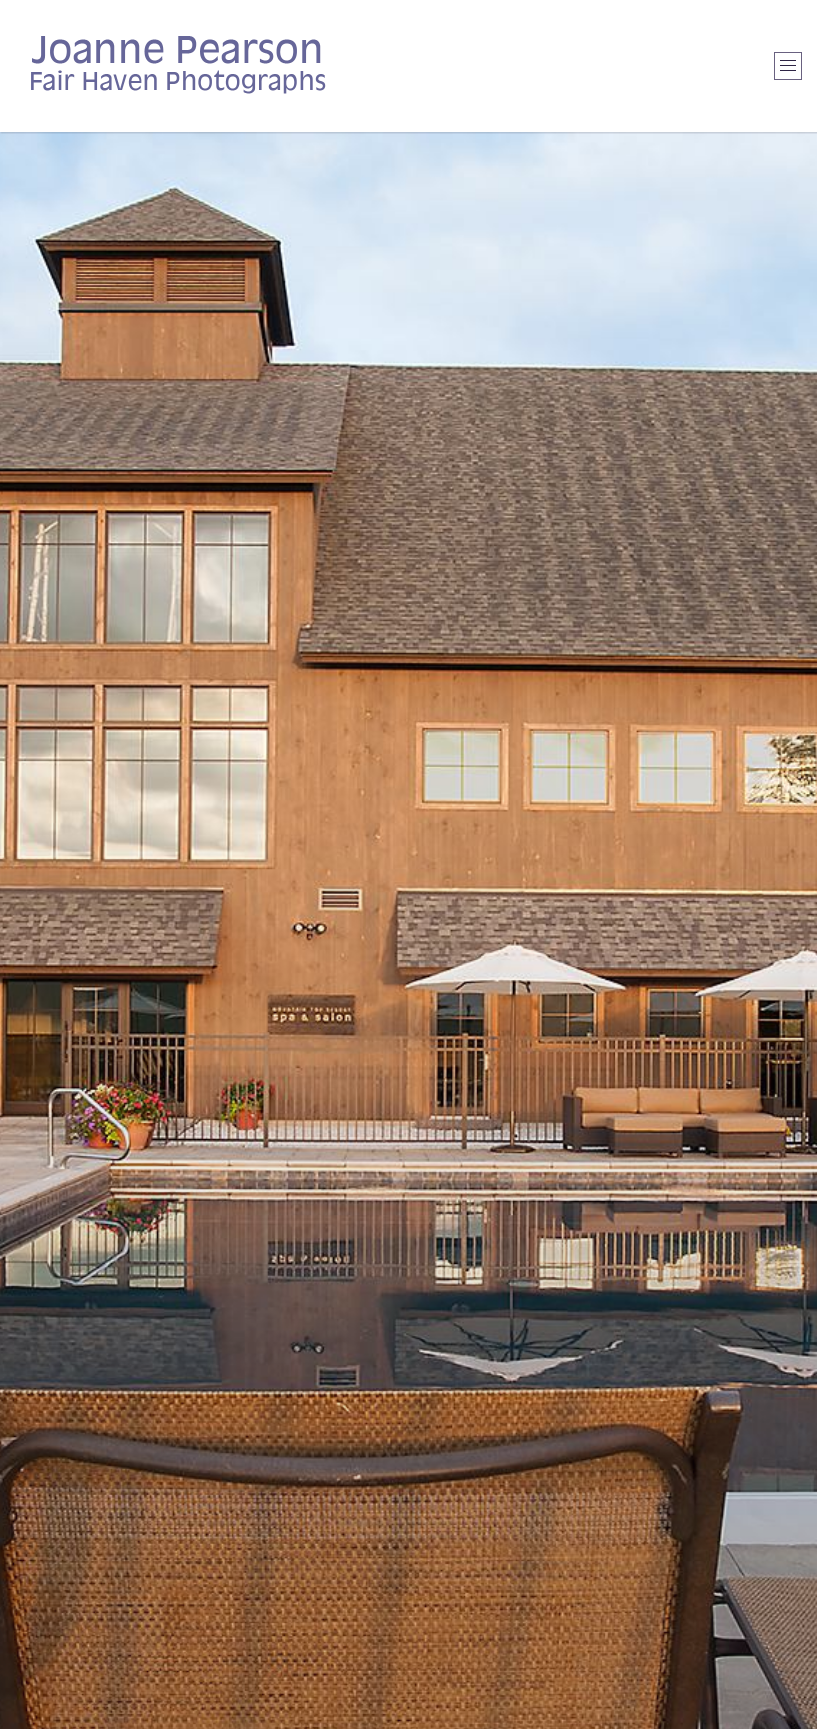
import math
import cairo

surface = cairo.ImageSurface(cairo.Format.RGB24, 817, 1729)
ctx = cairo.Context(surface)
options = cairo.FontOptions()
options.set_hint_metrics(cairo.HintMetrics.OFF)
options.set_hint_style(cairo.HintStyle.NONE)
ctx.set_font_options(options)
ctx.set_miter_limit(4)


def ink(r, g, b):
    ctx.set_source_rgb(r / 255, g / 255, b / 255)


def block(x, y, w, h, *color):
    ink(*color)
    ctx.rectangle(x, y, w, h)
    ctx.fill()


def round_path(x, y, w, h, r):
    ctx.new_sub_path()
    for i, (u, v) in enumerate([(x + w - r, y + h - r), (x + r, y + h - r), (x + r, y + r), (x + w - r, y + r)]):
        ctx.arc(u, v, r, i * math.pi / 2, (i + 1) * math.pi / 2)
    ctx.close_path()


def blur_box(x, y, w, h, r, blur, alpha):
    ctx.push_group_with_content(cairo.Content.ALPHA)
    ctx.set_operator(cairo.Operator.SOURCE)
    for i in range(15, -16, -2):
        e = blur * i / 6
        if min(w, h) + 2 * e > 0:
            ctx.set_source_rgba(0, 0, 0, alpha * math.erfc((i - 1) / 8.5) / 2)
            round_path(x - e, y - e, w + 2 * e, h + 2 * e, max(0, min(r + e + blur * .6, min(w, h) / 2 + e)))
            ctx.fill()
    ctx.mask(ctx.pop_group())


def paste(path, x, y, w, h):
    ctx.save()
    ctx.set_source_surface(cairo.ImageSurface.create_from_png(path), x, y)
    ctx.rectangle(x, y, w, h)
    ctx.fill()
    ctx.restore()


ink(255, 255, 255)
ctx.paint()
paste("pic2.png", 0, 132, 817, 1597)
ctx.save()
ctx.rectangle(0, 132, 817, 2)
ctx.clip()
ink(24, 19, 36)
blur_box(1, 1, 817, 132, 0, 1, 0.2)
ctx.restore()
paste("pic1.png", 31, 36, 295, 58)
ctx.rectangle(774.5, 52.5, 27, 27)
ink(105, 97, 128)
ctx.set_line_width(1)
ctx.stroke()
block(780, 60, 16, 1, 46, 37, 69)
block(780, 65, 16, 1, 46, 37, 69)
block(780, 70, 16, 1, 46, 37, 69)
surface.write_to_png("screenshot.png")
